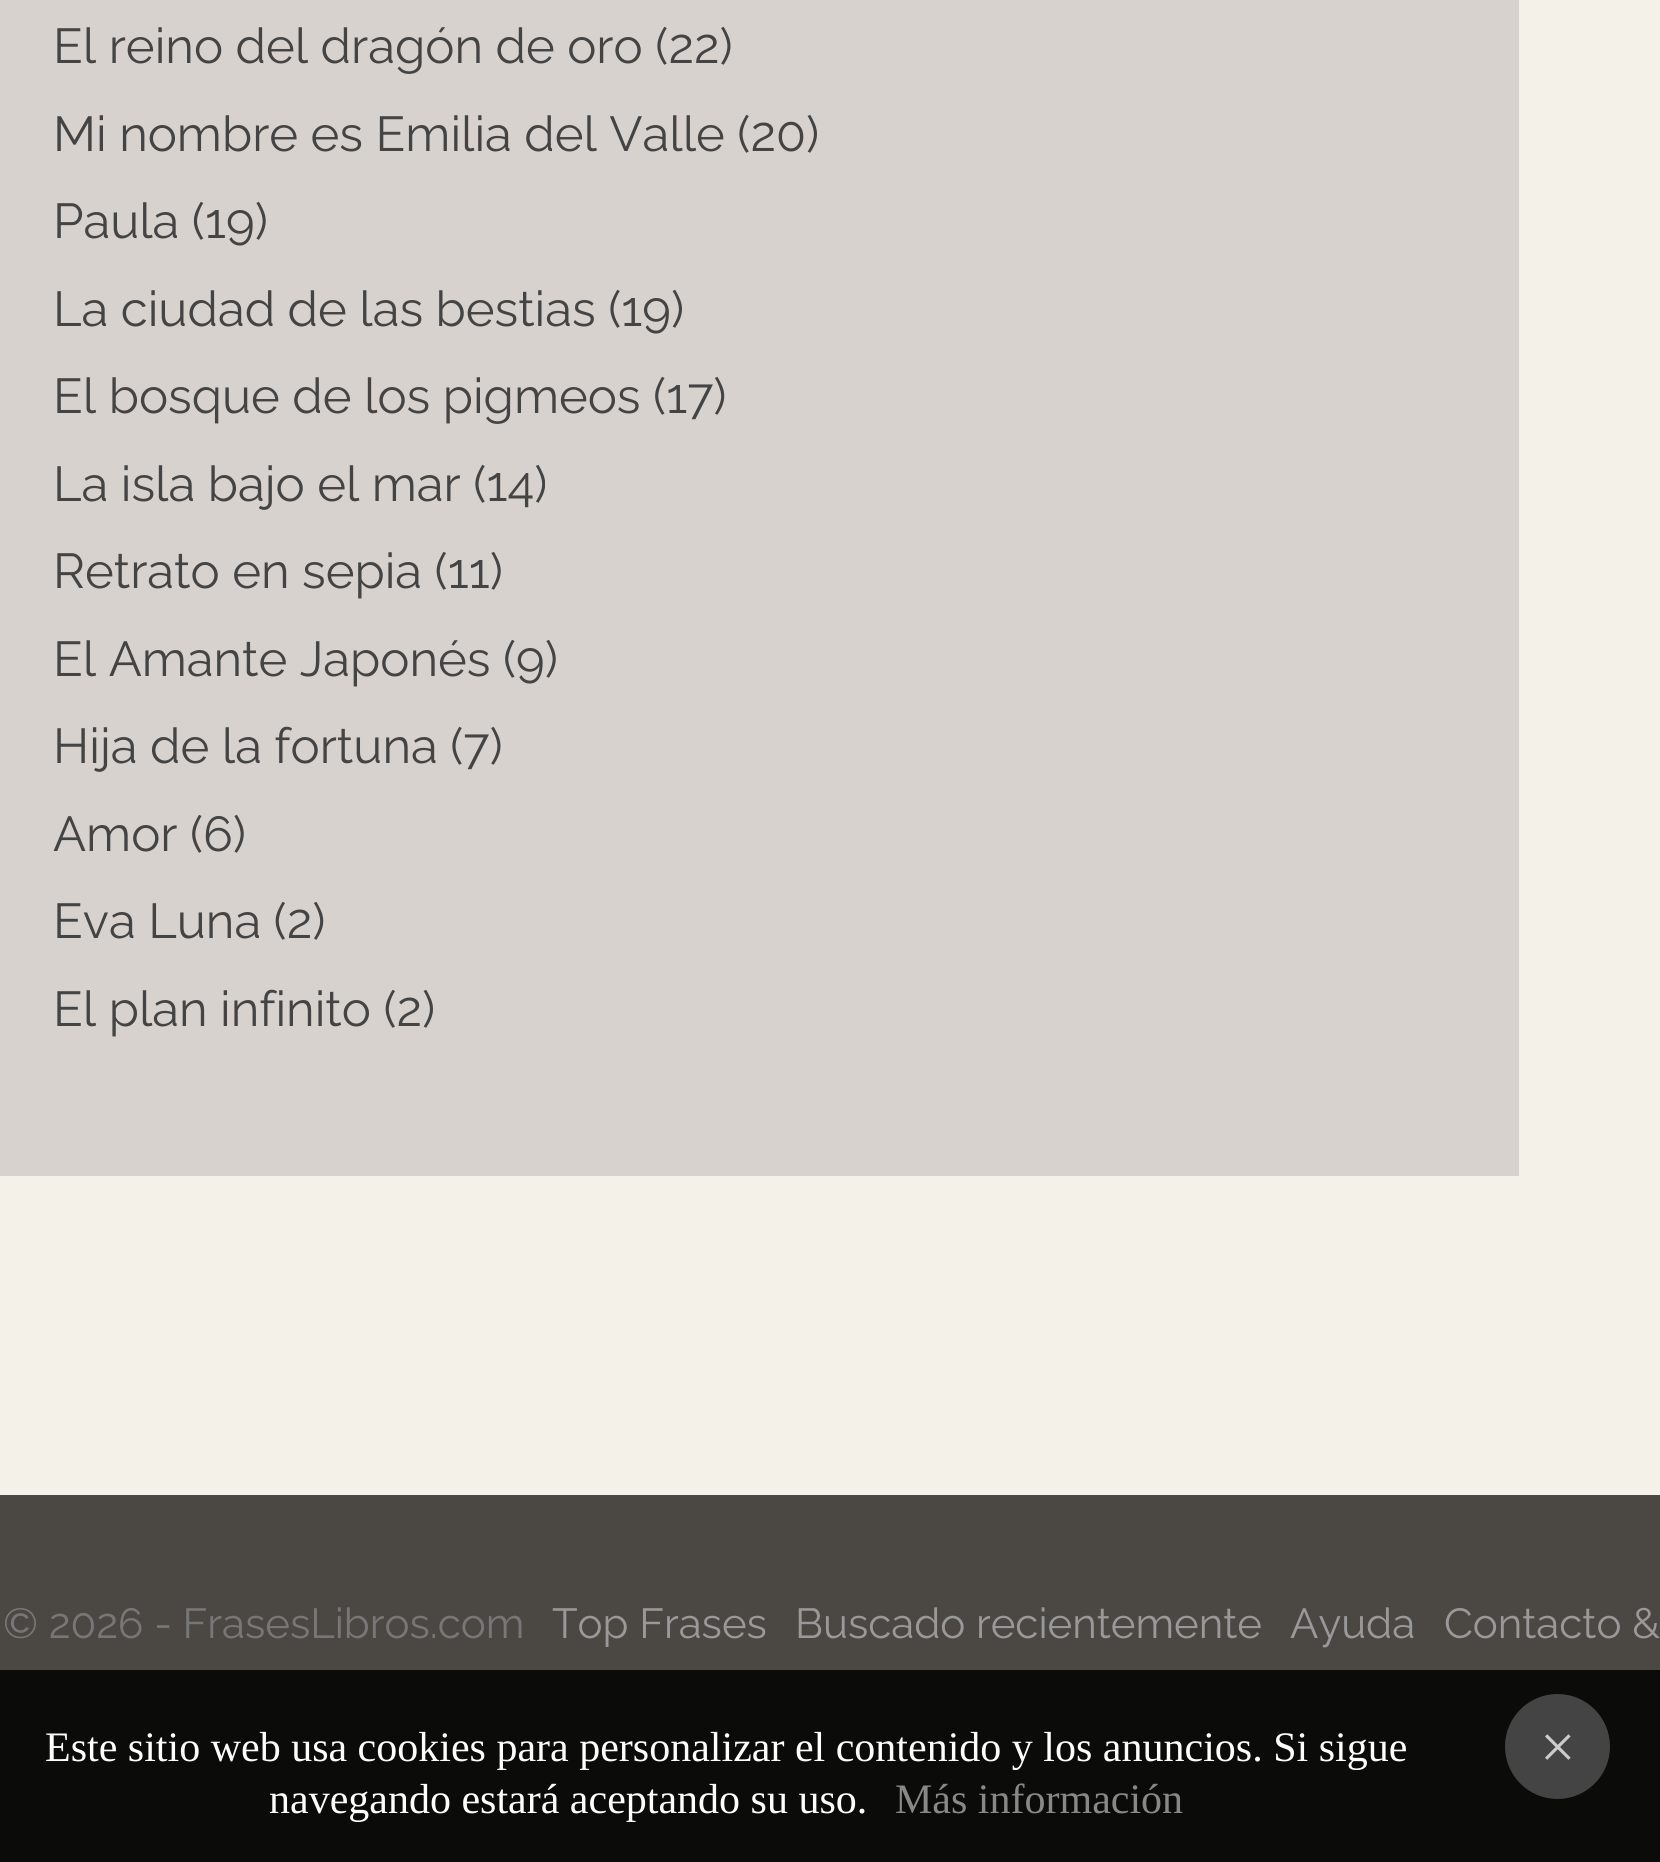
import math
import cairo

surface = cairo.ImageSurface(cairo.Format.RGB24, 1660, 1862)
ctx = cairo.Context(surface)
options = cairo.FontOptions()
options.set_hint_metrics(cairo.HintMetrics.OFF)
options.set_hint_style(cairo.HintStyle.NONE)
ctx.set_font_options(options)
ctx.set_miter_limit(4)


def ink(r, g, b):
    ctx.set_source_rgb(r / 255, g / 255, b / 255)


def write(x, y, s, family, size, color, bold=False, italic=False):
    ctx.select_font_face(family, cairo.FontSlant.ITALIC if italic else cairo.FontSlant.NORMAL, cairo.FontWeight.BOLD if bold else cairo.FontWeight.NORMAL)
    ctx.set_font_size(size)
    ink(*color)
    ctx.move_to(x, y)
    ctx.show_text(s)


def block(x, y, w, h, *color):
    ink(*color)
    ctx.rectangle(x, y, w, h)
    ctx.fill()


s1 = dict(family="Raleway", size=49, color=(68, 68, 68))
s2 = dict(family="Raleway", size=42, color=(119, 119, 119))
s3 = dict(family="Raleway", size=42, color=(153, 153, 153))
s4 = dict(family="Liberation Serif", size=42, color=(255, 255, 255))
s5 = dict(family="Liberation Serif", size=63, color=(204, 204, 204))
s6 = dict(family="Liberation Serif", size=42, color=(136, 136, 136))

ink(244, 241, 233)
ctx.paint()
block(0, 0, 1519, 1176, 215, 210, 206)
write(53, 63, "El reino del dragón de oro (22)", **s1)
write(53, 151, "Mi nombre es Emilia del Valle (20)", **s1)
write(53, 238, "Paula (19)", **s1)
write(53, 326, "La ciudad de las bestias (19)", **s1)
write(53, 413, "El bosque de los pigmeos (17)", **s1)
write(53, 501, "La isla bajo el mar (14)", **s1)
write(53, 588, "Retrato en sepia (11)", **s1)
write(53, 676, "El Amante Japonés (9)", **s1)
write(53, 763, "Hija de la fortuna (7)", **s1)
write(53, 851, "Amor (6)", **s1)
write(53, 938, "Eva Luna (2)", **s1)
write(53, 1026, "El plan infinito (2)", **s1)
block(0, 1495, 1660, 175, 75, 72, 68)
block(0, 1670, 1660, 192, 11, 11, 10)
write(3, 1638, "© 2026 - FrasesLibros.com", **s2)
write(552, 1638, "Top Frases", **s3)
write(795, 1638, "Buscado recientemente", **s3)
write(1290, 1638, "Ayuda", **s3)
write(1444, 1638, "Contacto &", **s3)
write(45, 1761, "Este sitio web usa cookies para personalizar el contenido y los anuncios. Si sigue", **s4)
ink(68, 68, 68)
ctx.new_path()
ctx.arc(1557.5, 1746.5, 52.5, 0, 2 * math.pi)
ctx.fill()
write(1540, 1768, "×", **s5)
write(269, 1813, "navegando estará aceptando su uso.", **s4)
write(895, 1813, "Más información", **s6)
surface.write_to_png("screenshot.png")
